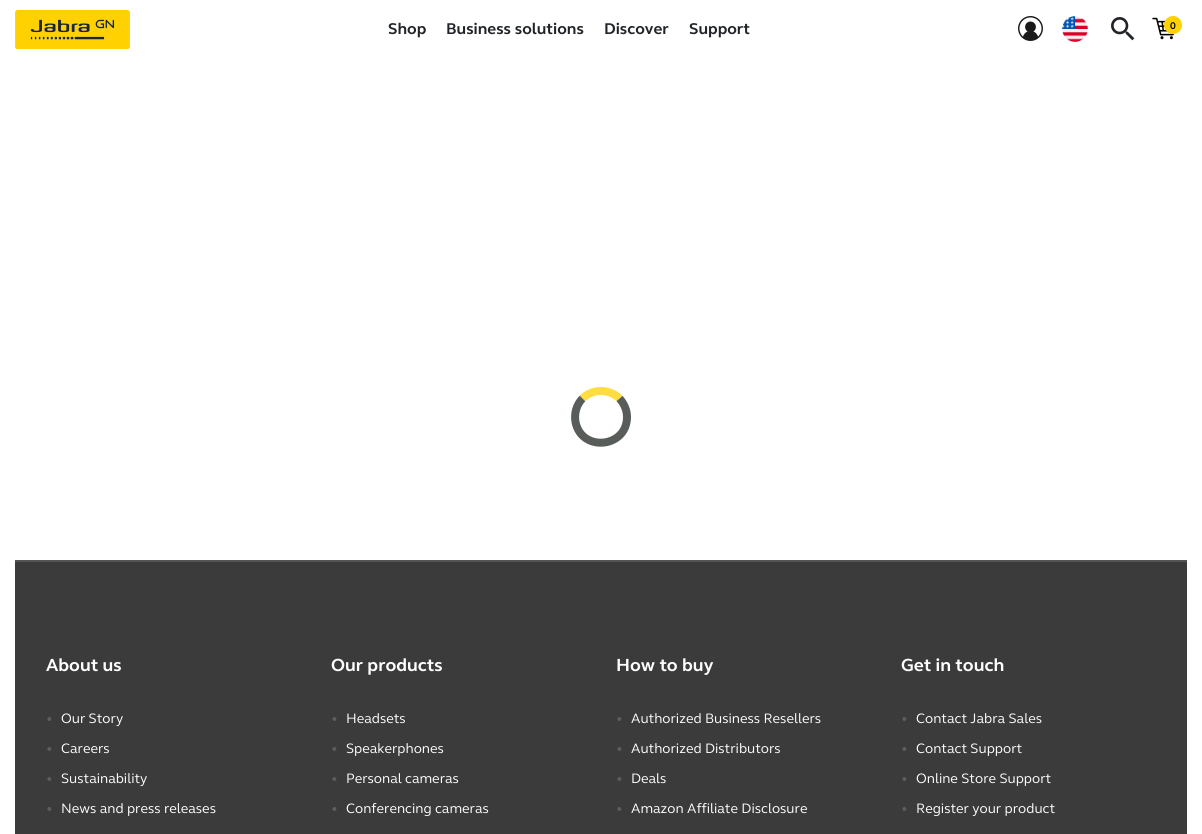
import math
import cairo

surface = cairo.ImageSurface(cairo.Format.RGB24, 1202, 834)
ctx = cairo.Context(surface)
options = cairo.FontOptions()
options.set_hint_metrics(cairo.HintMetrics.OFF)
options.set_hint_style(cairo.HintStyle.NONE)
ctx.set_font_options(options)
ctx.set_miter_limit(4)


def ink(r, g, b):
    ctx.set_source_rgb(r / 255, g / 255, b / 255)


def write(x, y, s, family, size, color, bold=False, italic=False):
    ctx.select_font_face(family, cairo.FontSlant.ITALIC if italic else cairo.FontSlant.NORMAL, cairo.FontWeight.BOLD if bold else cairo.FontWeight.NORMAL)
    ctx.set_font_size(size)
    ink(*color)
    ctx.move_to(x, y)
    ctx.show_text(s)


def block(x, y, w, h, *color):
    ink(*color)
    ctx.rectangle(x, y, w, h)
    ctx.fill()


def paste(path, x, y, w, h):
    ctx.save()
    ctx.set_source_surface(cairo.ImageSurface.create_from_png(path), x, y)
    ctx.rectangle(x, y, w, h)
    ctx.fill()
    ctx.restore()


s1 = dict(family="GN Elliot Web", size=16, color=(33, 37, 41), bold=True)
s2 = dict(family="GN Elliot Web", size=10, color=(0, 0, 0), bold=True)
s3 = dict(family="GN Elliot Web", size=18, color=(255, 255, 255), bold=True)
s4 = dict(family="GN Elliot Web", size=14, color=(93, 93, 93))
s5 = dict(family="GN Elliot Web", size=14, color=(255, 255, 255))

ink(255, 255, 255)
ctx.paint()
paste("pic1.png", 15, 10, 115, 39)
write(388, 34, "Shop", **s1)
write(446, 34, "Business solutions", **s1)
write(604, 34, "Discover", **s1)
write(689, 34, "Support", **s1)
paste("pic2.png", 1018, 16, 25, 25)
paste("pic3.png", 1062, 16, 26, 26)
paste("pic4.png", 1111, 17, 24, 24)
paste("pic5.png", 1152, 17, 22, 23)
ink(255, 209, 0)
ctx.arc(1173, 25, 9, 0, 2 * math.pi)
ctx.fill()
write(1170, 29, "0", **s2)
ctx.new_path()
ctx.move_to(582.5, 398.5)
ctx.curve_to(592.5, 388.5, 609.5, 388.5, 619.5, 398.5)
ink(255, 221, 64)
ctx.set_line_width(8)
ctx.stroke()
ctx.new_path()
ctx.move_to(619.5, 398.5)
ctx.curve_to(624, 403.5, 627, 410, 627, 417)
ctx.curve_to(627, 448, 581.5, 452.5, 575.5, 422)
ctx.curve_to(574, 413.5, 576.5, 404.5, 582.5, 398.5)
ink(89, 93, 89)
ctx.stroke()
block(15, 562, 1172, 272, 59, 59, 59)
block(15, 560, 1172, 2, 84, 84, 84)
write(46, 671, "About us", **s3)
write(46, 723, "•", **s4)
write(61, 723, "Our Story", **s5)
write(46, 753, "•", **s4)
write(61, 753, "Careers", **s5)
write(46, 783, "•", **s4)
write(61, 783, "Sustainability", **s5)
write(46, 813, "•", **s4)
write(61, 813, "News and press releases", **s5)
write(331, 671, "Our products", **s3)
write(331, 723, "•", **s4)
write(346, 723, "Headsets", **s5)
write(331, 753, "•", **s4)
write(346, 753, "Speakerphones", **s5)
write(331, 783, "•", **s4)
write(346, 783, "Personal cameras", **s5)
write(331, 813, "•", **s4)
write(346, 813, "Conferencing cameras", **s5)
write(616, 671, "How to buy", **s3)
write(616, 723, "•", **s4)
write(631, 723, "Authorized Business Resellers", **s5)
write(616, 753, "•", **s4)
write(631, 753, "Authorized Distributors", **s5)
write(616, 783, "•", **s4)
write(631, 783, "Deals", **s5)
write(616, 813, "•", **s4)
write(631, 813, "Amazon Affiliate Disclosure", **s5)
write(901, 671, "Get in touch", **s3)
write(901, 723, "•", **s4)
write(916, 723, "Contact Jabra Sales", **s5)
write(901, 753, "•", **s4)
write(916, 753, "Contact Support", **s5)
write(901, 783, "•", **s4)
write(916, 783, "Online Store Support", **s5)
write(901, 813, "•", **s4)
write(916, 813, "Register your product", **s5)
surface.write_to_png("screenshot.png")
